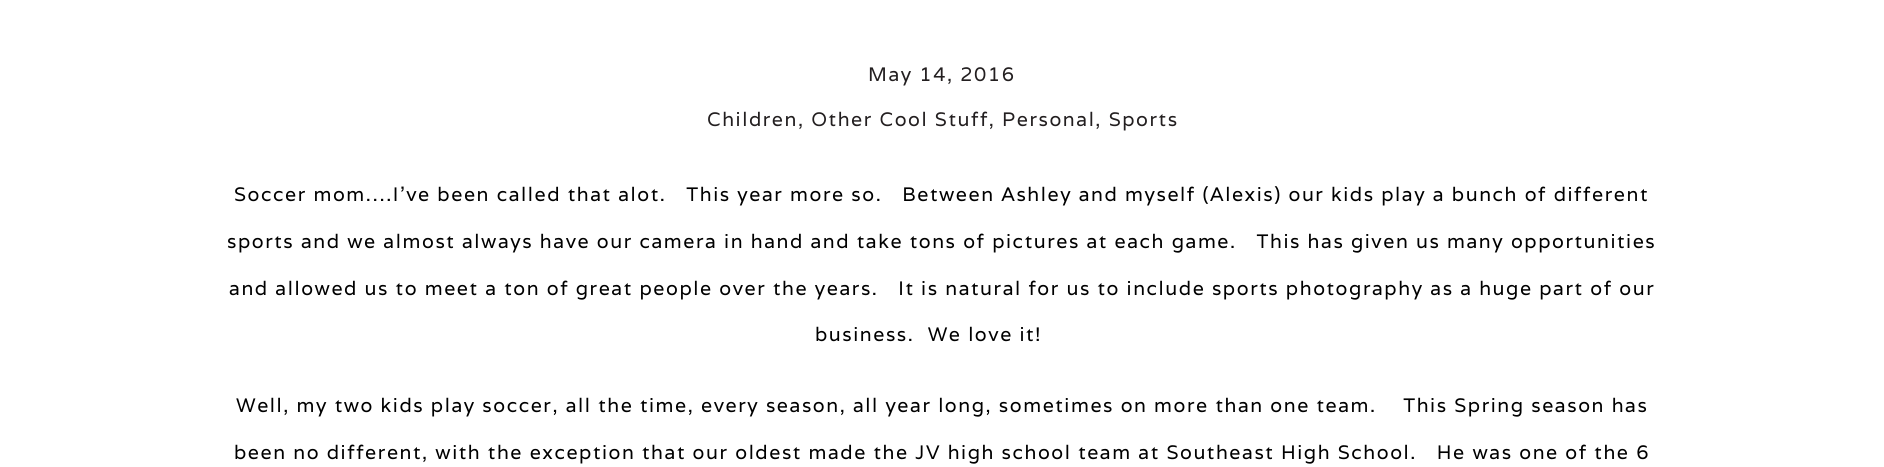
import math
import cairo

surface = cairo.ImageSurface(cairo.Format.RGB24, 1884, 467)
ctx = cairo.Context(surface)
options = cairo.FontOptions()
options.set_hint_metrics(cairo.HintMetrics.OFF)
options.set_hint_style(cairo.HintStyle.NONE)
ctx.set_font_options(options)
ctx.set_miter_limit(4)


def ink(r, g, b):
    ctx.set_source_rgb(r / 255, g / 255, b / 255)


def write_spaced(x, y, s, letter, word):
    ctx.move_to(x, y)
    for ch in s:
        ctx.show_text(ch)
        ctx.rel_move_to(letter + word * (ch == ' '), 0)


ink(255, 255, 255)
ctx.paint()
ctx.select_font_face("Varela")
ctx.set_font_size(19.5)
ink(35, 31, 32)
write_spaced(868, 81, "May 14, 2016", 1.56, 0)
write_spaced(707, 126, "Children, Other Cool Stuff, Personal, Sports", 1.56, 0)
ink(0, 0, 0)
write_spaced(234, 201, "Soccer mom….I’ve been called that alot.   This year more so.   Between Ashley and myself (Alexis) our kids play a bunch of different", 1.56, 0)
write_spaced(227, 248, "sports and we almost always have our camera in hand and take tons of pictures at each game.   This has given us many opportunities", 1.56, 0)
write_spaced(229, 295, "and allowed us to meet a ton of great people over the years.   It is natural for us to include sports photography as a huge part of our", 1.56, 0)
write_spaced(815, 341, "business.  We love it!", 1.56, 0)
write_spaced(236, 412, "Well, my two kids play soccer, all the time, every season, all year long, sometimes on more than one team.    This Spring season has", 1.56, 0)
write_spaced(234, 459, "been no different, with the exception that our oldest made the JV high school team at Southeast High School.   He was one of the 6", 1.56, 0)
surface.write_to_png("screenshot.png")
